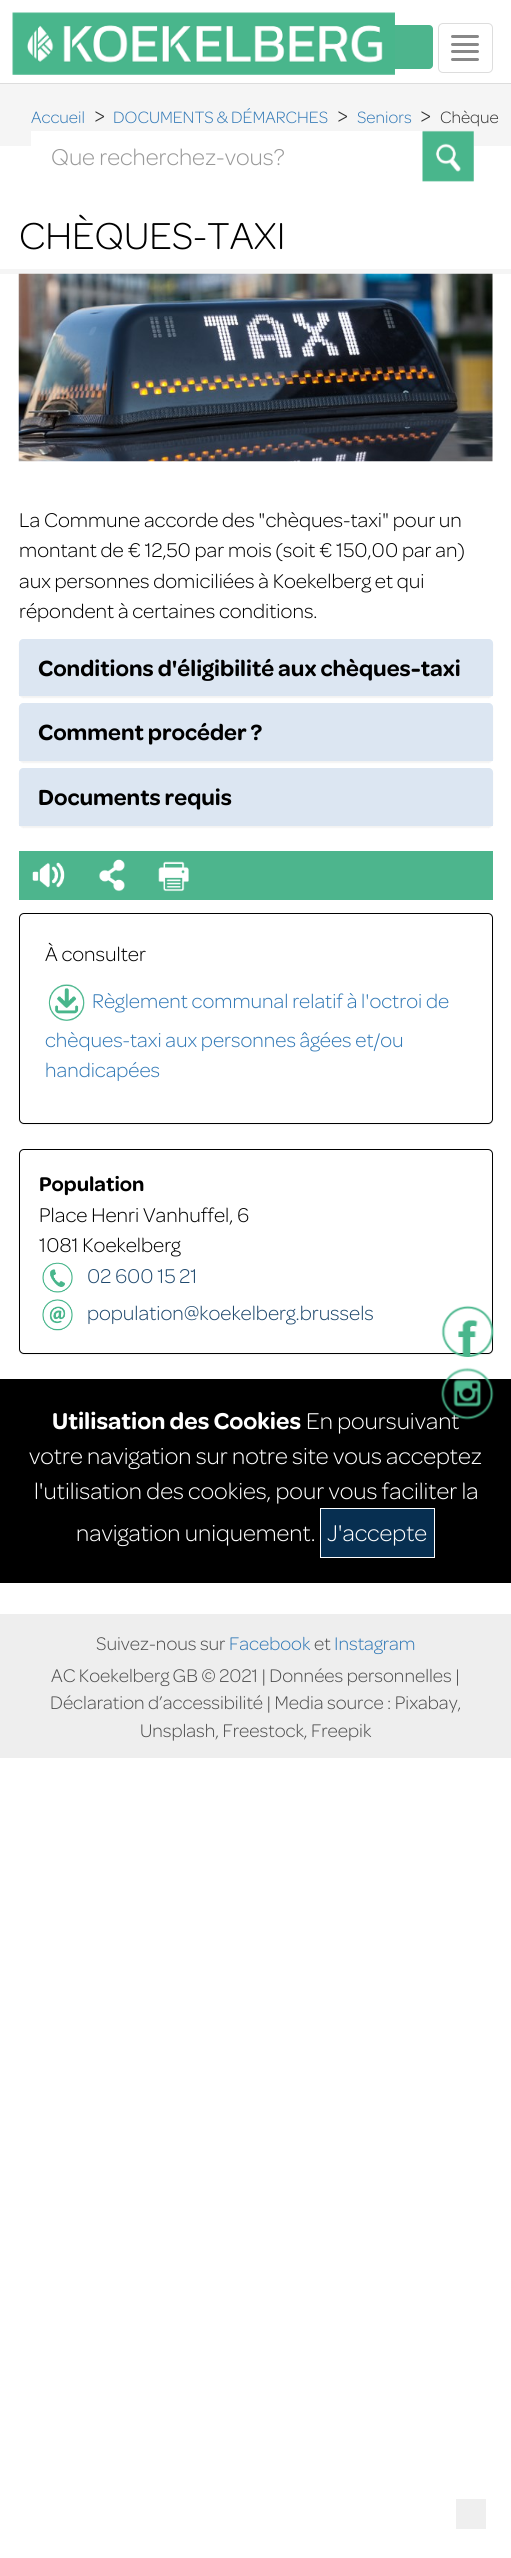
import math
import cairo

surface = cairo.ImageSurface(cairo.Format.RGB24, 511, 2558)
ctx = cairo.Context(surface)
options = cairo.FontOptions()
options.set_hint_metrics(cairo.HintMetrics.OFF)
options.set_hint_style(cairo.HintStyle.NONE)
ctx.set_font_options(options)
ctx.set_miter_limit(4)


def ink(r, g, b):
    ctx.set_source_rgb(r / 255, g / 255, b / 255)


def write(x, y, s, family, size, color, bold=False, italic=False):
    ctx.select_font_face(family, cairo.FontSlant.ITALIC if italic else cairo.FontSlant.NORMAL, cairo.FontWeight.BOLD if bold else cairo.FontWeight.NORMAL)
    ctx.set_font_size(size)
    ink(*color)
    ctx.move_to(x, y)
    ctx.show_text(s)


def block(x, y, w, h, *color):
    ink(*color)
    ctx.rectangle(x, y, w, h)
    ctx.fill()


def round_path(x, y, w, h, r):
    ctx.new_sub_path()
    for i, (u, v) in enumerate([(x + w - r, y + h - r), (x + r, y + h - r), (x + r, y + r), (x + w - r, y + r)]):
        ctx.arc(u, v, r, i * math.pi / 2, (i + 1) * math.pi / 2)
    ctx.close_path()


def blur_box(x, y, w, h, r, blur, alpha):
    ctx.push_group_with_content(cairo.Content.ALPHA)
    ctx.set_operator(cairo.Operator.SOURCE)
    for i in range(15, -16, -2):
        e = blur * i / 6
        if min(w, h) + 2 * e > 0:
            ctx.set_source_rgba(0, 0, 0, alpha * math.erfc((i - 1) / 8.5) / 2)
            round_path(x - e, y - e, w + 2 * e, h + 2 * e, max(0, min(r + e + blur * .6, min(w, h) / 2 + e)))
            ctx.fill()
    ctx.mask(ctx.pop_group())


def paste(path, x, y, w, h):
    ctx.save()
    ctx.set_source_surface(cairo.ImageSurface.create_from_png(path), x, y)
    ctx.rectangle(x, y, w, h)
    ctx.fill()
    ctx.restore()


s1 = dict(family="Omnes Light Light", size=17.5, color=(51, 122, 183))
s2 = dict(family="Omnes Light Light", size=24.4, color=(51, 51, 51))
s3 = dict(family="Omnes Light Light", size=17.5, color=(51, 51, 51))
s4 = dict(family="Omnes Light Light", size=24.4, color=(153, 153, 153))
s5 = dict(family="Omnes Light Light", size=40, color=(0, 0, 0))
s6 = dict(family="Omnes Light Light", size=21.25, color=(0, 0, 0))
s7 = dict(family="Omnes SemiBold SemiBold", size=23.4, color=(0, 0, 0))
s8 = dict(family="Omnes Light Light", size=21.25, color=(51, 122, 183))
s9 = dict(family="Omnes SemiBold SemiBold", size=21.25, color=(0, 0, 0))
s10 = dict(family="Omnes Light Light", size=21.25, color=(31, 73, 110))
s11 = dict(family="Omnes Light Light", size=24.4, color=(255, 255, 255))
s12 = dict(family="Omnes SemiBold SemiBold", size=24.4, color=(255, 255, 255))
s13 = dict(family="Omnes Light Light", size=19.5, color=(78, 78, 78))
s14 = dict(family="Omnes Light Light", size=19.5, color=(51, 122, 183))

ink(255, 255, 255)
ctx.paint()
block(0, 83, 511, 1, 221, 221, 221)
ink(77, 181, 141)
round_path(390, 25, 43, 44, 4)
ctx.fill()
paste("pic1.png", 12, 12, 383, 63)
round_path(438.5, 23.5, 54, 49, 4.5)
ink(221, 221, 221)
ctx.set_line_width(1)
ctx.stroke()
ink(136, 136, 136)
round_path(451, 35, 28, 3, 1.5)
ctx.fill()
round_path(451, 43, 28, 3, 1.5)
ctx.fill()
round_path(451, 50, 28, 3, 1.5)
ctx.fill()
round_path(451, 58, 28, 3, 1.5)
ctx.fill()
block(0, 84, 511, 62, 245, 245, 245)
write(31, 123, "Accueil", **s1)
write(94, 123, ">", **s2)
write(113, 123, "DOCUMENTS & DÉMARCHES", **s1)
write(337, 123, ">", **s2)
write(357, 123, "Seniors", **s1)
write(420, 123, ">", **s2)
write(440, 123, "Chèque", **s3)
block(31, 131, 392, 15, 255, 255, 255)
write(51, 165, "Que recherchez-vous?", **s4)
block(423, 131, 51, 50, 239, 239, 239)
paste("pic2.png", 422, 130, 52, 52)
write(19, 249, "CHÈQUES-TAXI", **s5)
block(0, 269, 511, 5, 245, 245, 245)
paste("pic3.png", 18, 273, 475, 189)
write(19, 527, "La Commune accorde des \"chèques-taxi\" pour un", **s6)
write(19, 557, "montant de € 12,50 par mois (soit € 150,00 par an)", **s6)
write(19, 588, "aux personnes domiciliées à Koekelberg et qui", **s6)
write(19, 618, "répondent à certaines conditions.", **s6)
ink(0, 0, 0)
blur_box(19, 640, 474, 58, 5, 0.5, 0.05)
ink(220, 230, 242)
ctx.new_path()
ctx.move_to(23, 639)
ctx.line_to(489, 639)
ctx.curve_to(491, 639, 493, 641, 493, 643)
ctx.line_to(493, 696)
ctx.line_to(19, 696)
ctx.line_to(19, 643)
ctx.curve_to(19, 641, 21, 639, 23, 639)
ctx.close_path()
ctx.fill()
write(38, 676, "Conditions d'éligibilité aux chèques-taxi", **s7)
ink(0, 0, 0)
blur_box(19, 704, 474, 59, 5, 0.5, 0.05)
ink(220, 230, 242)
ctx.new_path()
ctx.move_to(23, 703)
ctx.line_to(489, 703)
ctx.curve_to(491, 703, 493, 705, 493, 707)
ctx.line_to(493, 761)
ctx.line_to(19, 761)
ctx.line_to(19, 707)
ctx.curve_to(19, 705, 21, 703, 23, 703)
ctx.close_path()
ctx.fill()
write(38, 740, "Comment procéder ?", **s7)
ink(0, 0, 0)
blur_box(19, 769, 474, 59, 5, 0.5, 0.05)
ink(220, 230, 242)
ctx.new_path()
ctx.move_to(23, 768)
ctx.line_to(489, 768)
ctx.curve_to(491, 768, 493, 770, 493, 772)
ctx.line_to(493, 826)
ctx.line_to(19, 826)
ctx.line_to(19, 772)
ctx.curve_to(19, 770, 21, 768, 23, 768)
ctx.close_path()
ctx.fill()
write(38, 805, "Documents requis", **s7)
block(19, 851, 474, 49, 77, 181, 141)
paste("pic4.png", 32, 862, 33, 26)
paste("pic5.png", 99, 859, 26, 33)
paste("pic6.png", 158, 861, 31, 31)
ctx.save()
ctx.set_fill_rule(cairo.FillRule.EVEN_ODD)
ctx.new_path()
ctx.move_to(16, 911)
ctx.line_to(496, 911)
ctx.line_to(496, 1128)
ctx.line_to(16, 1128)
ctx.close_path()
ctx.move_to(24, 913)
ctx.line_to(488, 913)
ctx.curve_to(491, 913, 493, 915, 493, 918)
ctx.line_to(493, 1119)
ctx.curve_to(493, 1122, 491, 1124, 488, 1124)
ctx.line_to(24, 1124)
ctx.curve_to(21, 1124, 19, 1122, 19, 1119)
ctx.line_to(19, 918)
ctx.curve_to(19, 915, 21, 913, 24, 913)
ctx.close_path()
ctx.clip()
ink(0, 0, 0)
blur_box(19, 914, 474, 211, 5, 0.5, 0.05)
ctx.restore()
round_path(19.5, 913.5, 473, 210, 4.5)
ink(0, 0, 0)
ctx.stroke()
write(45, 961, "À consulter", **s6)
paste("pic7.png", 48, 984, 37, 37)
write(92, 1008, "Règlement communal relatif à l'octroi de", **s8)
write(45, 1047, "chèques-taxi aux personnes âgées et/ou", **s8)
write(45, 1077, "handicapées", **s8)
ink(0, 0, 0)
blur_box(19, 1150, 474, 205, 5, 0.5, 0.05)
ink(255, 255, 255)
round_path(19.5, 1149.5, 473, 204, 4.5)
ctx.fill_preserve()
ink(0, 0, 0)
ctx.stroke()
write(39, 1191, "Population", **s9)
write(39, 1222, "Place Henri Vanhuffel, 6", **s6)
write(39, 1252, "1081 Koekelberg", **s6)
paste("pic8.png", 42, 1262, 31, 31)
write(87, 1283, "02 600 15 21", **s10)
paste("pic9.png", 42, 1299, 31, 32)
write(87, 1320, "population@koekelberg.brussels", **s10)
paste("pic10.png", 441, 1305, 53, 52)
block(0, 1379, 511, 204, 0, 0, 0)
write(306, 1429, "En poursuivant", **s11)
paste("pic11.png", 441, 1367, 53, 53)
write(52, 1429, "Utilisation des Cookies", **s12)
write(29, 1464, "votre navigation sur notre site vous acceptez", **s11)
write(34, 1499, "l'utilisation des cookies, pour vous faciliter la", **s11)
write(76, 1541, "navigation uniquement.", **s11)
ink(7, 47, 81)
ctx.rectangle(320.5, 1508.5, 114, 49)
ctx.fill_preserve()
ink(255, 255, 255)
ctx.stroke()
write(327, 1541, "J'accepte", **s11)
block(0, 1614, 511, 144, 238, 238, 238)
write(96, 1650, "Suivez-nous sur", **s13)
write(229, 1650, "Facebook", **s14)
write(314, 1650, "et", **s13)
write(334, 1650, "Instagram", **s14)
write(51, 1682, "AC Koekelberg GB © 2021 | Données personnelles |", **s13)
write(50, 1709, "Déclaration d’accessibilité | Media source : Pixabay,", **s13)
write(140, 1737, "Unsplash, Freestock, Freepik", **s13)
block(456, 2499, 30, 30, 239, 239, 239)
surface.write_to_png("screenshot.png")
